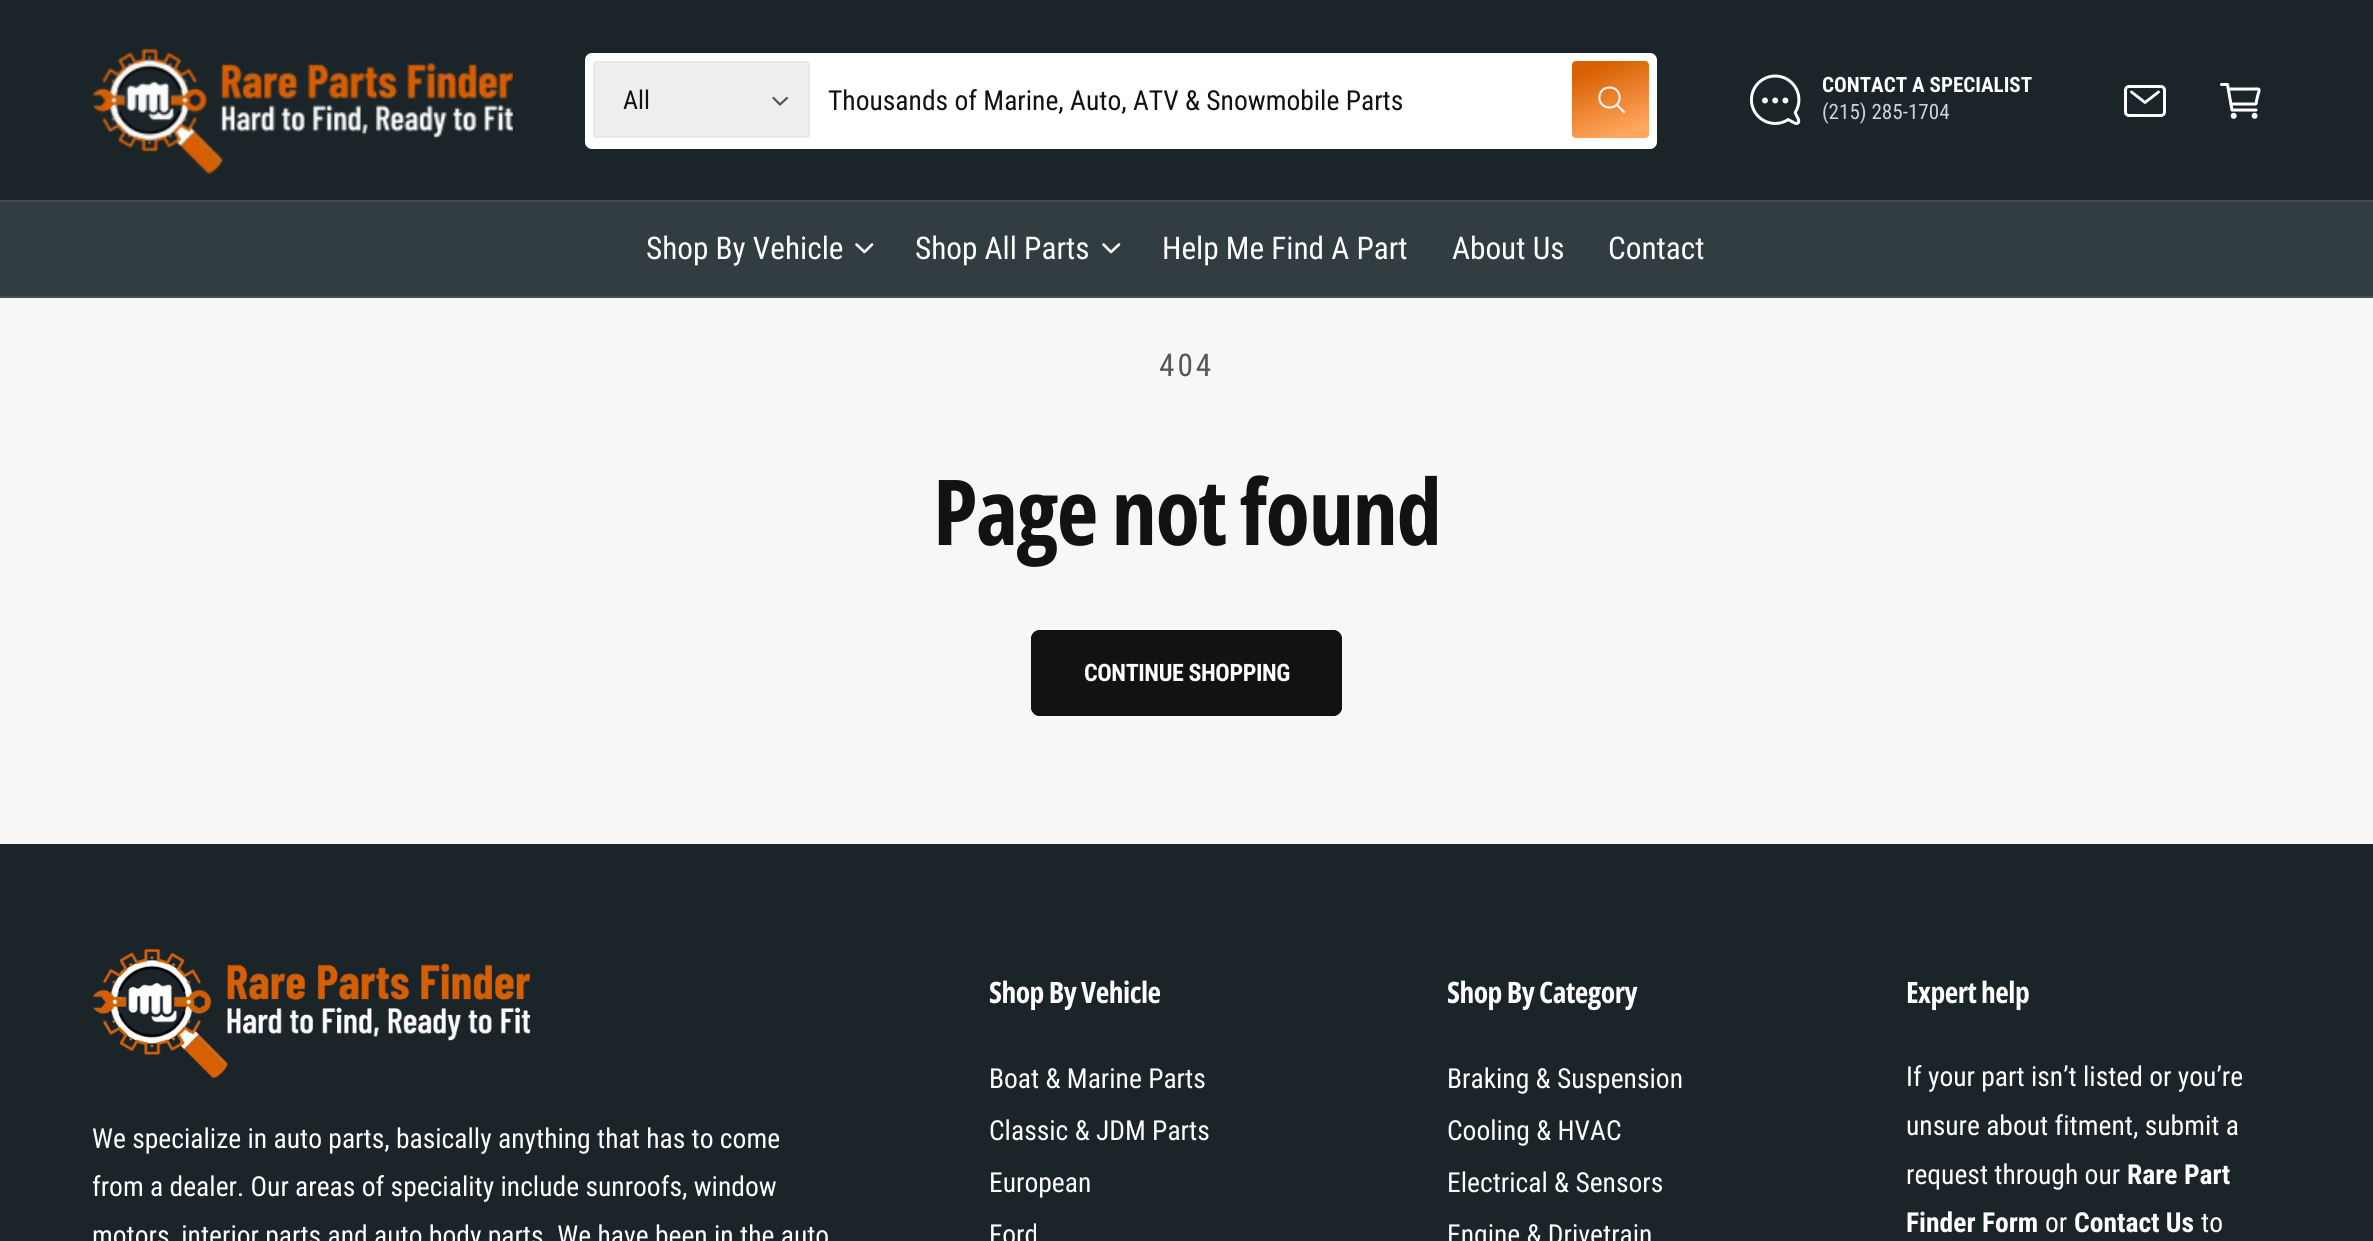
import math
import cairo

surface = cairo.ImageSurface(cairo.Format.RGB24, 2373, 1241)
ctx = cairo.Context(surface)
options = cairo.FontOptions()
options.set_hint_metrics(cairo.HintMetrics.OFF)
options.set_hint_style(cairo.HintStyle.NONE)
ctx.set_font_options(options)
ctx.set_miter_limit(4)


def ink(r, g, b):
    ctx.set_source_rgb(r / 255, g / 255, b / 255)


def write(x, y, s, family, size, color, bold=False, italic=False):
    ctx.select_font_face(family, cairo.FontSlant.ITALIC if italic else cairo.FontSlant.NORMAL, cairo.FontWeight.BOLD if bold else cairo.FontWeight.NORMAL)
    ctx.set_font_size(size)
    ink(*color)
    ctx.move_to(x, y)
    ctx.show_text(s)


def write_spaced(x, y, s, letter, word):
    ctx.move_to(x, y)
    for ch in s:
        ctx.show_text(ch)
        ctx.rel_move_to(letter + word * (ch == ' '), 0)


def block(x, y, w, h, *color):
    ink(*color)
    ctx.rectangle(x, y, w, h)
    ctx.fill()


def round_path(x, y, w, h, r):
    ctx.new_sub_path()
    for i, (u, v) in enumerate([(x + w - r, y + h - r), (x + r, y + h - r), (x + r, y + r), (x + w - r, y + r)]):
        ctx.arc(u, v, r, i * math.pi / 2, (i + 1) * math.pi / 2)
    ctx.close_path()


def paste(path, x, y, w, h):
    ctx.save()
    ctx.set_source_surface(cairo.ImageSurface.create_from_png(path), x, y)
    ctx.rectangle(x, y, w, h)
    ctx.fill()
    ctx.restore()


s1 = dict(family="Roboto Condensed", size=26, color=(18, 18, 18))
s2 = dict(family="Roboto Condensed", size=27.55, color=(18, 18, 18))
s3 = dict(family="Roboto Condensed", size=21.1, color=(255, 255, 255), bold=True)
s4 = dict(family="Roboto Condensed", size=21.1, color=(209, 211, 212))
s5 = dict(family="Roboto Condensed", size=31.25, color=(255, 255, 255))
s6 = dict(family="Roboto Condensed", size=27.55, color=(255, 255, 255))
s7 = dict(family="Roboto Condensed", size=27.55, color=(255, 255, 255), bold=True)

ink(249, 247, 246)
ctx.paint()
block(0, 0, 2373, 200, 27, 37, 41)
paste("pic1.png", 92, 48, 421, 126)
ink(255, 255, 255)
round_path(585, 53, 1072, 96, 7)
ctx.fill()
ink(238, 238, 238)
round_path(593, 61, 217, 77, 4)
ctx.fill()
ctx.rectangle(594, 62, 215, 75)
ctx.set_source_rgba(0.071, 0.071, 0.071, 0.03)
ctx.stroke()
write(623, 109, "All", **s1)
ctx.new_path()
ctx.move_to(773.5, 98)
ctx.line_to(780, 104.5)
ctx.line_to(787, 98)
ink(84, 84, 84)
ctx.set_line_width(2.2)
ctx.set_line_cap(cairo.LineCap.ROUND)
ctx.set_line_join(cairo.LineJoin.ROUND)
ctx.stroke()
write(828, 110, "Thousands of Marine, Auto, ATV & Snowmobile Parts", **s2)
gradient = cairo.LinearGradient(1627, 146, 1593, 53)
gradient.add_color_stop_rgba(0.13, 1, 0.651, 0.373, 1)
gradient.add_color_stop_rgba(0.86, 0.847, 0.376, 0, 1)
ctx.set_source(gradient)
round_path(1572, 61, 77, 77, 4)
ctx.fill()
ctx.new_path()
ctx.move_to(1609.5, 87.5)
ctx.curve_to(1596, 87.5, 1596, 107.5, 1609.5, 107.5)
ctx.curve_to(1623, 107.5, 1623, 87.5, 1609.5, 87.5)
ctx.close_path()
ink(243, 243, 243)
ctx.set_line_width(2.1)
ctx.set_line_cap(cairo.LineCap.BUTT)
ctx.set_line_join(cairo.LineJoin.MITER)
ctx.stroke()
ctx.new_path()
ctx.move_to(1617, 105)
ctx.line_to(1624, 112)
ctx.set_line_cap(cairo.LineCap.ROUND)
ctx.stroke()
paste("pic2.png", 1750, 74, 51, 51)
write(1822, 92, "CONTACT A SPECIALIST", **s3)
write(1822, 119, "(215) 285-1704", **s4)
round_path(2125.5, 86.5, 39, 29, 3.5)
ink(255, 255, 255)
ctx.set_line_width(3)
ctx.set_line_cap(cairo.LineCap.BUTT)
ctx.stroke()
ctx.new_path()
ctx.move_to(2131.5, 92)
ctx.line_to(2145, 102.5)
ctx.line_to(2158.5, 92)
ctx.set_line_width(2.8)
ctx.set_line_cap(cairo.LineCap.ROUND)
ctx.set_line_join(cairo.LineJoin.ROUND)
ctx.stroke()
ctx.arc(2233.7, 115.8, 1.5, 0, 2 * math.pi)
ctx.set_line_width(3)
ctx.set_line_cap(cairo.LineCap.BUTT)
ctx.set_line_join(cairo.LineJoin.MITER)
ctx.stroke()
ctx.arc(2254.6, 115.8, 1.5, 0, 2 * math.pi)
ctx.stroke()
ctx.new_path()
ctx.move_to(2221.5, 84.5)
ctx.line_to(2227.5, 84.5)
ctx.line_to(2232, 110)
ctx.line_to(2256, 110)
ctx.move_to(2232, 104)
ctx.line_to(2251.5, 104)
ctx.curve_to(2256.5, 104, 2256, 105, 2256.5, 101)
ctx.line_to(2257.5, 96.5)
ctx.curve_to(2259.5, 88, 2261, 89, 2253.5, 89)
ctx.line_to(2229, 89)
ctx.set_line_cap(cairo.LineCap.ROUND)
ctx.set_line_join(cairo.LineJoin.ROUND)
ctx.stroke()
block(0, 202, 2373, 94, 50, 61, 65)
block(0, 200, 2373, 2, 66, 77, 80)
block(0, 296, 2373, 2, 66, 77, 80)
write(646, 259, "Shop By Vehicle", **s5)
ctx.new_path()
ctx.move_to(856.5, 244.5)
ctx.line_to(864.5, 252)
ctx.line_to(872, 244.5)
ctx.set_line_width(2.6)
ctx.stroke()
write(915, 259, "Shop All Parts", **s5)
ctx.new_path()
ctx.move_to(1103.5, 244.5)
ctx.line_to(1111, 252)
ctx.line_to(1119, 244.5)
ctx.stroke()
write(1162, 259, "Help Me Find A Part", **s5)
write(1452, 259, "About Us", **s5)
write(1608, 259, "Contact", **s5)
ink(87, 87, 86)
write_spaced(1159, 376, "404", 3, 0)
ctx.select_font_face("Open Sans Condensed", cairo.FontSlant.NORMAL, cairo.FontWeight.BOLD)
ctx.set_font_size(91)
ink(18, 18, 18)
write_spaced(933, 545, "Page not found", -1.6, 0)
round_path(1031, 630, 311, 86, 9)
ctx.fill()
round_path(1032, 631, 309, 84, 8)
ctx.set_line_width(2)
ctx.set_line_cap(cairo.LineCap.BUTT)
ctx.set_line_join(cairo.LineJoin.MITER)
ctx.stroke()
ctx.select_font_face("Roboto Condensed", cairo.FontSlant.NORMAL, cairo.FontWeight.BOLD)
ctx.set_font_size(24)
ink(255, 255, 255)
write_spaced(1084, 681, "CONTINUE SHOPPING", -0.4, 0)
block(0, 844, 2373, 397, 27, 37, 41)
paste("pic3.png", 93, 948, 438, 131)
write(92, 1148, "We specialize in auto parts, basically anything that has to come", **s6)
write(92, 1196, "from a dealer. Our areas of speciality include sunroofs, window", **s6)
write(92, 1245, "motors, interior parts and auto body parts. We have been in the auto", **s6)
ctx.select_font_face("Open Sans Condensed", cairo.FontSlant.NORMAL, cairo.FontWeight.BOLD)
ctx.set_font_size(29.5)
write_spaced(989, 1003, "Shop By Vehicle", -0.5, 0)
write(989, 1088, "Boat & Marine Parts", **s6)
write(989, 1140, "Classic & JDM Parts", **s6)
write(989, 1192, "European", **s6)
write(989, 1244, "Ford", **s6)
ctx.select_font_face("Open Sans Condensed", cairo.FontSlant.NORMAL, cairo.FontWeight.BOLD)
ctx.set_font_size(29.5)
write_spaced(1447, 1003, "Shop By Category", -0.5, 0)
write(1447, 1088, "Braking & Suspension", **s6)
write(1447, 1140, "Cooling & HVAC", **s6)
write(1447, 1192, "Electrical & Sensors", **s6)
write(1447, 1244, "Engine & Drivetrain", **s6)
ctx.select_font_face("Open Sans Condensed", cairo.FontSlant.NORMAL, cairo.FontWeight.BOLD)
ctx.set_font_size(29.5)
write_spaced(1906, 1003, "Expert help", -0.5, 0)
write(1906, 1086, "If your part isn’t listed or you’re", **s6)
write(1906, 1135, "unsure about fitment, submit a", **s6)
write(1906, 1184, "request through our", **s6)
write(2127, 1184, "Rare Part", **s7)
write(1906, 1232, "Finder Form", **s7)
write(2045, 1232, "or", **s6)
write(2074, 1232, "Contact Us", **s7)
write(2201, 1232, "to", **s6)
surface.write_to_png("screenshot.png")
